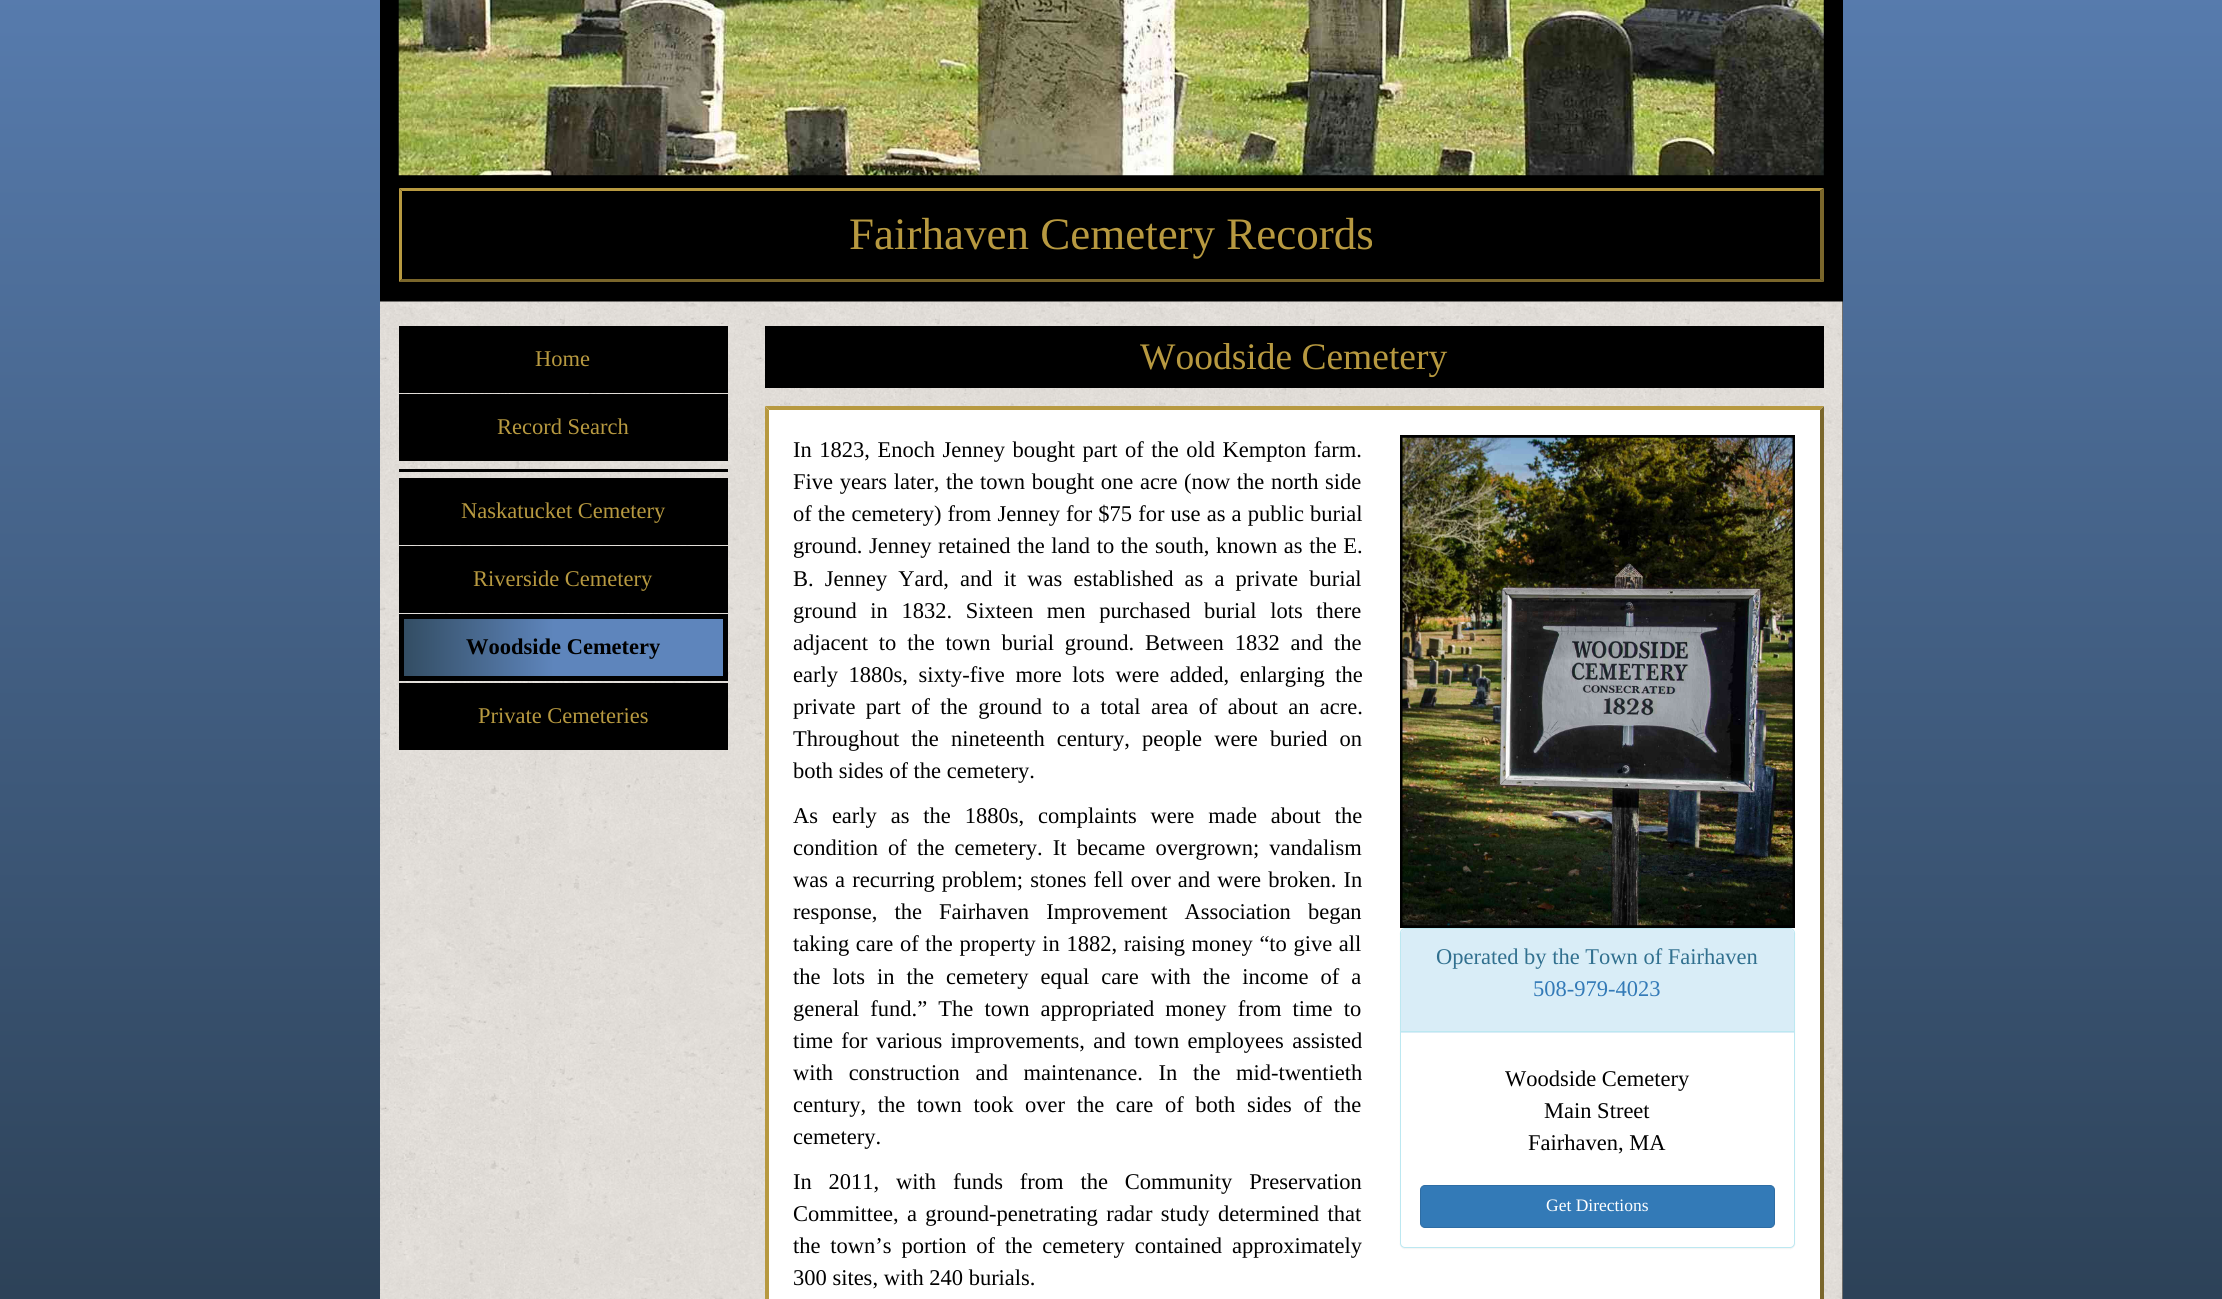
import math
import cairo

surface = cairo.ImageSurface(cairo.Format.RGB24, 2222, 1299)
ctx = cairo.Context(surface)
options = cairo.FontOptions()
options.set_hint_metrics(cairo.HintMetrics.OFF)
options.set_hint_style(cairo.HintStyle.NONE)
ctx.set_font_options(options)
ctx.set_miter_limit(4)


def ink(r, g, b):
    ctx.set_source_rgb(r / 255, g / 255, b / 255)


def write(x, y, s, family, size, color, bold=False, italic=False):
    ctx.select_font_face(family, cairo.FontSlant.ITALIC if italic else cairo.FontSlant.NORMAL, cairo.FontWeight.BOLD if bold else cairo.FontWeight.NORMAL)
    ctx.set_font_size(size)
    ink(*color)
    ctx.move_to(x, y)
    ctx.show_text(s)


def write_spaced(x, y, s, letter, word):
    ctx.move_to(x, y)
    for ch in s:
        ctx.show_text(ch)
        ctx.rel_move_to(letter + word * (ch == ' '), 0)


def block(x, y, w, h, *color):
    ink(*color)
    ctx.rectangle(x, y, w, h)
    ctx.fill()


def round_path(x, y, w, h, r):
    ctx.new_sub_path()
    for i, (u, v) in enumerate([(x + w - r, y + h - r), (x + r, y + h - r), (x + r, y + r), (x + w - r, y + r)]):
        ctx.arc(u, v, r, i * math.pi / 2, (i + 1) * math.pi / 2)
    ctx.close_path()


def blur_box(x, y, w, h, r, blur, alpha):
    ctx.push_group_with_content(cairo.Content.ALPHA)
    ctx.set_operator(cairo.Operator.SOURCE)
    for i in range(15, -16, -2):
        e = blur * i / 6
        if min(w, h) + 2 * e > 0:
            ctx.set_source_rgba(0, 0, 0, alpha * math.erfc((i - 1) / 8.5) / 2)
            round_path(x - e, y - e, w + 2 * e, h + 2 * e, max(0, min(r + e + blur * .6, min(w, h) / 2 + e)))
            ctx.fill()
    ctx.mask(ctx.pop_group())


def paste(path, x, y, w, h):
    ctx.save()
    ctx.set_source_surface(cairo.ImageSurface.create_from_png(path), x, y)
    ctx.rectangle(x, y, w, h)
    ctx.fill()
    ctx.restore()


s1 = dict(family="Liberation Serif", size=45, color=(183, 153, 64))
s2 = dict(family="Liberation Serif", size=22.5, color=(183, 153, 64))
s3 = dict(family="Liberation Serif", size=22.5, color=(0, 0, 0), bold=True)
s4 = dict(family="Liberation Serif", size=37.5, color=(183, 153, 64))
s5 = dict(family="Liberation Serif", size=22.5, color=(0, 0, 0))
s6 = dict(family="Liberation Serif", size=22.5, color=(49, 112, 143))
s7 = dict(family="Liberation Serif", size=22.5, color=(51, 122, 183))
s8 = dict(family="Liberation Serif", size=17.5, color=(255, 255, 255))

ink(255, 255, 255)
ctx.paint()
gradient = cairo.LinearGradient(1111, -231, 1111, 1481)
gradient.add_color_stop_rgba(0, 0.369, 0.522, 0.737, 1)
gradient.add_color_stop_rgba(1, 0.153, 0.227, 0.298, 1)
ctx.set_source(gradient)
ctx.rectangle(0, 0, 2222, 1299)
ctx.fill()
block(380, 0, 1463, 1299, 0, 0, 0)
paste("pic1.png", 398, 0, 1426, 176)
ink(183, 153, 64)
ctx.new_path()
ctx.move_to(399, 188)
ctx.line_to(1824, 188)
ctx.line_to(1820, 191)
ctx.line_to(402, 191)
ctx.close_path()
ctx.fill()
ink(122, 102, 43)
ctx.new_path()
ctx.move_to(1824, 188)
ctx.line_to(1824, 282)
ctx.line_to(1820, 279)
ctx.line_to(1820, 191)
ctx.close_path()
ctx.fill()
ctx.new_path()
ctx.move_to(1824, 282)
ctx.line_to(399, 282)
ctx.line_to(402, 279)
ctx.line_to(1820, 279)
ctx.close_path()
ctx.fill()
ink(183, 153, 64)
ctx.new_path()
ctx.move_to(399, 282)
ctx.line_to(399, 188)
ctx.line_to(402, 191)
ctx.line_to(402, 279)
ctx.close_path()
ctx.fill()
write(849, 249, "Fairhaven Cemetery Records", **s1)
paste("pic2.png", 380, 301, 1463, 998)
block(399, 326, 329, 67, 0, 0, 0)
write(535, 366, "Home", **s2)
block(399, 394, 329, 67, 0, 0, 0)
write(497, 434, "Record Search", **s2)
block(399, 469, 329, 3, 0, 0, 0)
block(399, 478, 329, 67, 0, 0, 0)
write(461, 518, "Naskatucket Cemetery", **s2)
block(399, 546, 329, 67, 0, 0, 0)
write(473, 586, "Riverside Cemetery", **s2)
gradient = cairo.LinearGradient(404, 648, 723, 648)
gradient.add_color_stop_rgba(0, 0.2, 0.302, 0.388, 1)
gradient.add_color_stop_rgba(0.47, 0.369, 0.522, 0.737, 1)
ctx.set_source(gradient)
ctx.rectangle(404, 619, 319, 57)
ctx.fill()
ctx.rectangle(401.5, 616.5, 324, 62)
ink(0, 0, 0)
ctx.set_line_width(5)
ctx.stroke()
write(466, 654, "Woodside Cemetery", **s3)
block(399, 683, 329, 67, 0, 0, 0)
write(478, 723, "Private Cemeteries", **s2)
block(765, 326, 1059, 62, 0, 0, 0)
write(1140, 369, "Woodside Cemetery", **s4)
block(765, 406, 1059, 893, 255, 255, 255)
ink(183, 153, 64)
ctx.new_path()
ctx.move_to(765, 406)
ctx.line_to(1824, 406)
ctx.line_to(1820, 410)
ctx.line_to(769, 410)
ctx.close_path()
ctx.fill()
ink(122, 102, 43)
ctx.new_path()
ctx.move_to(1824, 406)
ctx.line_to(1824, 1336)
ctx.line_to(1820, 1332)
ctx.line_to(1820, 410)
ctx.close_path()
ctx.fill()
ink(183, 153, 64)
ctx.new_path()
ctx.move_to(765, 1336)
ctx.line_to(765, 406)
ctx.line_to(769, 410)
ctx.line_to(769, 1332)
ctx.close_path()
ctx.fill()
ctx.set_font_size(22.5)
ink(0, 0, 0)
write_spaced(793, 457, "In 1823, Enoch Jenney bought part of the old Kempton farm.", 0, 1.9)
write_spaced(793, 489, "Five years later, the town bought one acre (now the north side", 0, 1)
write_spaced(793, 521, "of the cemetery) from Jenney for $75 for use as a public burial", 0, 0.5)
write(793, 553, "ground.", **s5)
write_spaced(869, 553, "Jenney retained the land to the south, known as the E.", 0, 1)
write_spaced(793, 586, "B. Jenney Yard, and it was established as a private burial", 0, 5.5)
write_spaced(793, 618, "ground in 1832. Sixteen men purchased burial lots there", 0, 8)
write_spaced(793, 650, "adjacent to the town burial ground. Between 1832 and the", 0, 5.25)
write_spaced(793, 682, "early 1880s, sixty-five more lots were added, enlarging the", 0, 5)
write_spaced(793, 714, "private part of the ground to a total area of about an acre.", 0, 4.75)
write_spaced(793, 746, "Throughout the nineteenth century, people were buried on", 0, 6.5)
write(793, 778, "both sides of the cemetery.", **s5)
write_spaced(793, 823, "As early as the 1880s, complaints were made about the", 0, 8.25)
write_spaced(793, 855, "condition of the cemetery. It became overgrown; vandalism", 0, 4.5)
write_spaced(793, 887, "was a recurring problem; stones fell over and were broken. In", 0, 1.5)
write_spaced(793, 919, "response, the Fairhaven Improvement Association began", 0, 11.5)
write_spaced(793, 951, "taking care of the property in 1882, raising money “to give all", 0, 1)
write_spaced(793, 984, "the lots in the cemetery equal care with the income of a", 0, 6.4)
write_spaced(793, 1016, "general fund.” The town appropriated money from time to", 0, 5.5)
write_spaced(793, 1048, "time for various improvements, and town employees assisted", 0, 2.75)
write_spaced(793, 1080, "with construction and maintenance. In the mid-twentieth", 0, 10)
write_spaced(793, 1112, "century, the town took over the care of both sides of the", 0, 6)
write(793, 1144, "cemetery.", **s5)
write_spaced(793, 1189, "In 2011, with funds from the Community Preservation", 0, 11.25)
write_spaced(793, 1221, "Committee, a ground-penetrating radar study determined that", 0, 2.75)
write_spaced(793, 1253, "the town’s portion of the cemetery contained approximately", 0, 4.25)
write(793, 1285, "300 sites, with 240 burials.", **s5)
ctx.rectangle(1401.5, 436.5, 392, 490)
ctx.set_line_width(3)
ctx.stroke()
paste("pic3.png", 1402, 437, 391, 489)
ink(0, 0, 0)
blur_box(1400, 929, 395, 320, 5, 0.5, 0.05)
ink(255, 255, 255)
round_path(1400.5, 928.5, 394, 319, 4.5)
ctx.fill_preserve()
ink(188, 232, 241)
ctx.set_line_width(1)
ctx.stroke()
ink(217, 237, 247)
ctx.new_path()
ctx.move_to(1405, 929)
ctx.line_to(1790, 929)
ctx.curve_to(1792, 929, 1794, 931, 1794, 933)
ctx.line_to(1794, 1033)
ctx.line_to(1401, 1033)
ctx.line_to(1401, 933)
ctx.curve_to(1401, 931, 1403, 929, 1405, 929)
ctx.close_path()
ctx.fill()
block(1401, 1031, 393, 1, 188, 232, 241)
write(1436, 964, "Operated by the Town of Fairhaven", **s6)
write(1533, 996, "508-979-4023", **s7)
write(1505, 1086, "Woodside Cemetery", **s5)
write(1544, 1118, "Main Street", **s5)
write(1528, 1150, "Fairhaven, MA", **s5)
ink(51, 122, 183)
round_path(1420.5, 1185.5, 354, 42, 4.5)
ctx.fill_preserve()
ink(46, 109, 164)
ctx.stroke()
write(1546, 1211, "Get Directions", **s8)
surface.write_to_png("screenshot.png")
